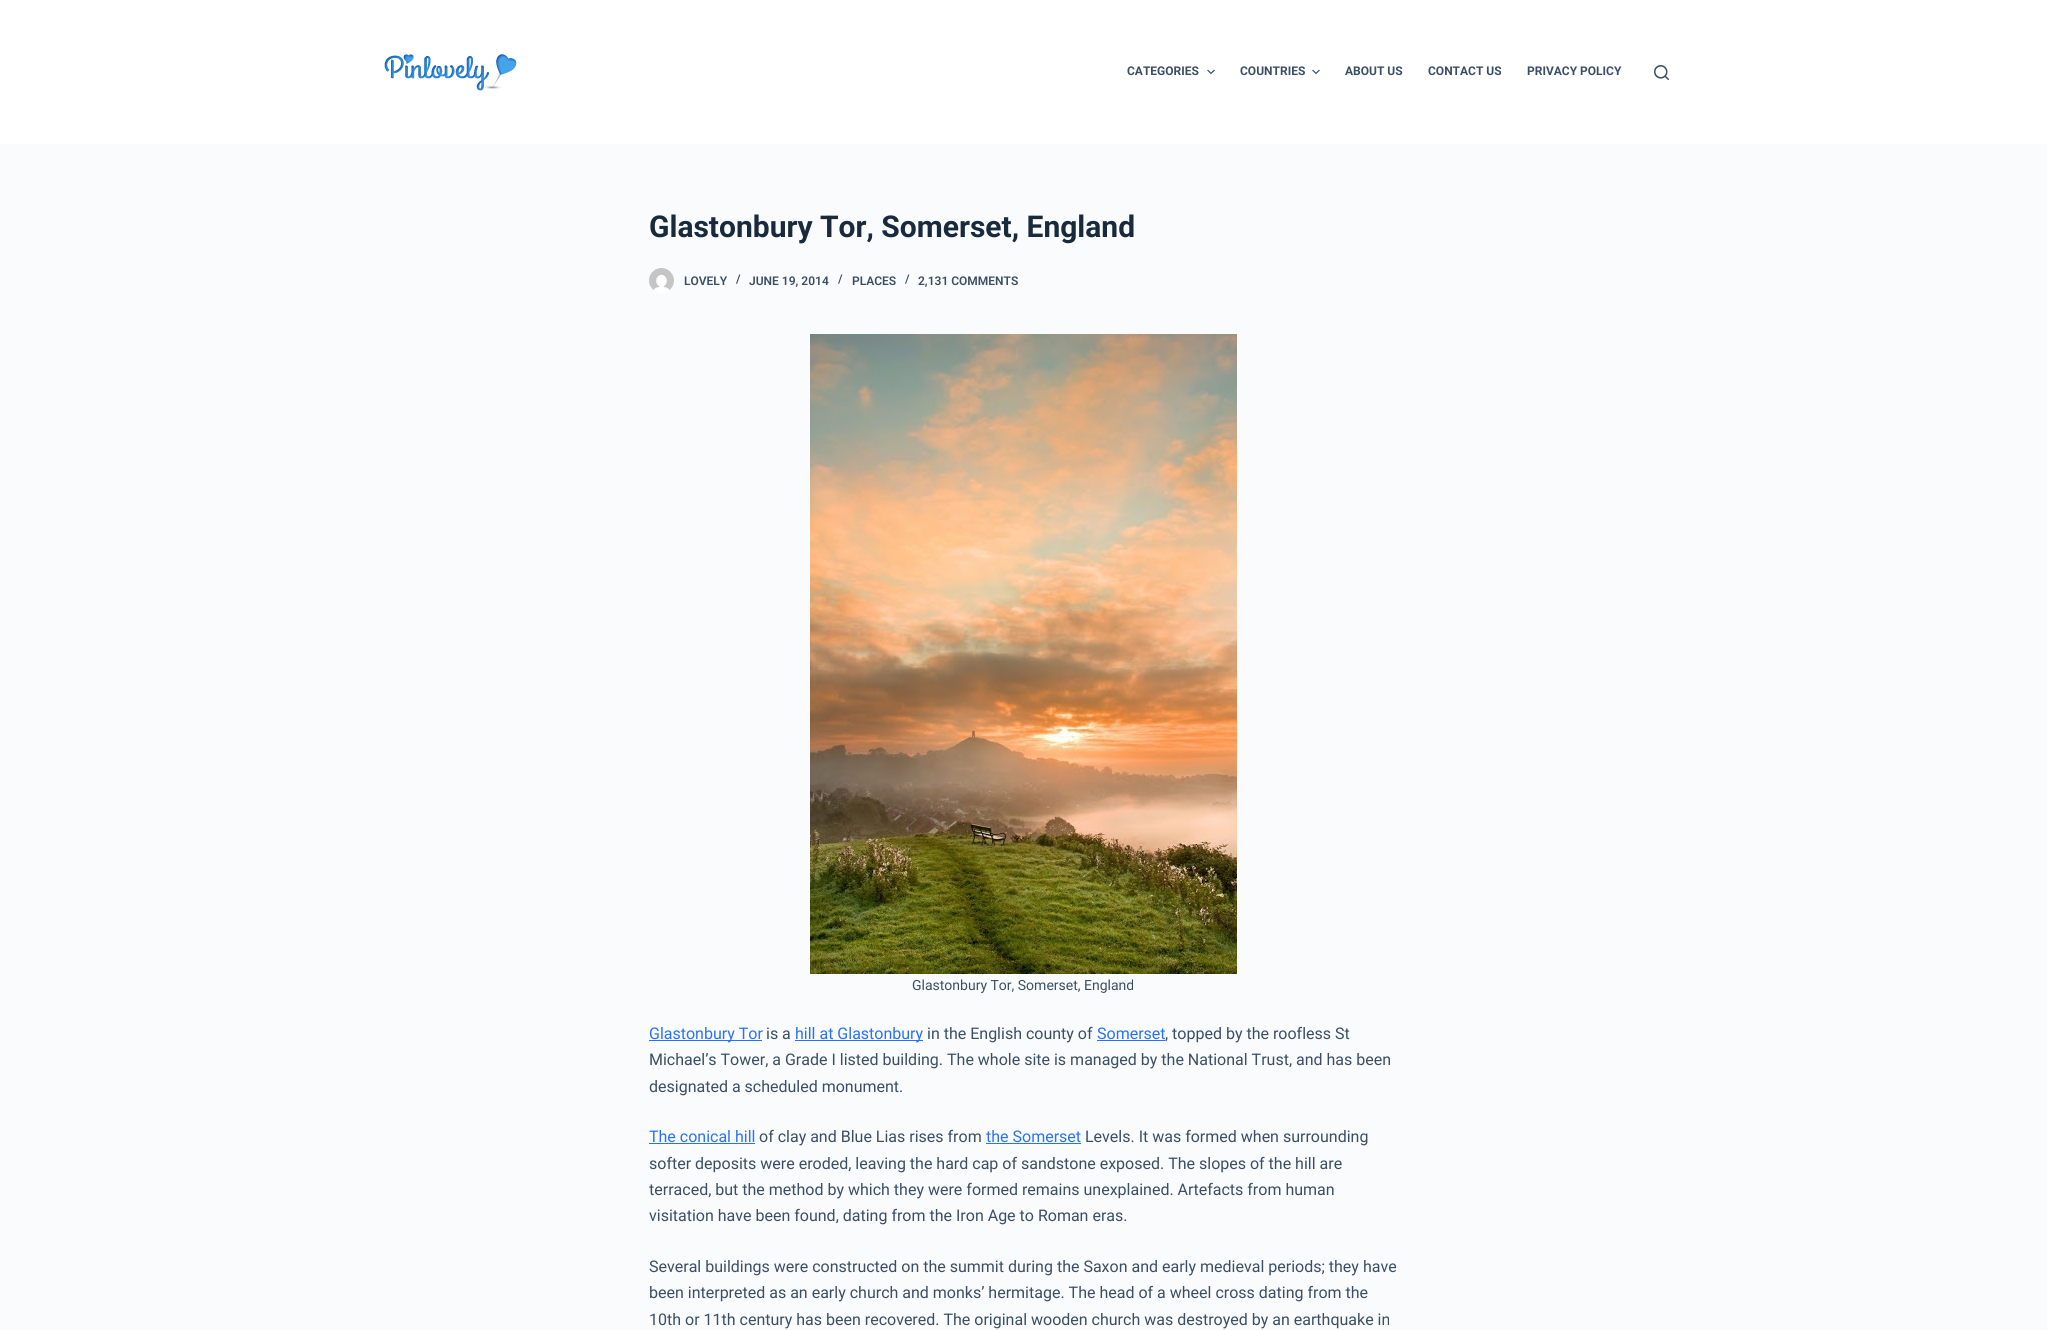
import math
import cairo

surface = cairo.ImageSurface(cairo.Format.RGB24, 2047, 1330)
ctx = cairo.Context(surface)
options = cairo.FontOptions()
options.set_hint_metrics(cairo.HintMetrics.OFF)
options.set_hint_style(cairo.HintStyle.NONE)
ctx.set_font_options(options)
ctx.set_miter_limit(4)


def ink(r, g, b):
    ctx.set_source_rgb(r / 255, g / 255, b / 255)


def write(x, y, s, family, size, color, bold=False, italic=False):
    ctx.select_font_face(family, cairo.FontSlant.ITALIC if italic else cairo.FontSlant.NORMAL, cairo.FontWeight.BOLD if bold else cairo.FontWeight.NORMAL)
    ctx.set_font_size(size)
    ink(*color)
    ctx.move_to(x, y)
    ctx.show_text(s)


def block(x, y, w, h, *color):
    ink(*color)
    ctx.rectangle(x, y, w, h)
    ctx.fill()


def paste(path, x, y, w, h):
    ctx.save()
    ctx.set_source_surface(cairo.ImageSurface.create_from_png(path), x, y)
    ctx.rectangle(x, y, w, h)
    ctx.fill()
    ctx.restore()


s1 = dict(family="Roboto", size=12, color=(58, 79, 102), bold=True)
s2 = dict(family="Roboto", size=30, color=(25, 42, 61), bold=True)
s3 = dict(family="Roboto SemiBold", size=12, color=(58, 79, 102))
s4 = dict(family="Roboto", size=14, color=(58, 79, 102))
s5 = dict(family="Roboto", size=16, color=(40, 114, 250))
s6 = dict(family="Roboto", size=16, color=(58, 79, 102))

ink(250, 251, 252)
ctx.paint()
block(0, 0, 2047, 144, 255, 255, 255)
paste("pic1.png", 384, 54, 133, 37)
write(1127, 75, "CATEGORIES", **s1)
paste("pic2.png", 1207, 69, 8, 6)
write(1240, 75, "COUNTRIES", **s1)
paste("pic2.png", 1312, 69, 8, 6)
write(1345, 75, "ABOUT US", **s1)
write(1428, 75, "CONTACT US", **s1)
write(1527, 75, "PRIVACY POLICY", **s1)
paste("pic3.png", 1654, 65, 15, 15)
write(649, 237, "Glastonbury Tor, Somerset, England", **s2)
paste("pic4.png", 649, 268, 25, 25)
write(684, 285, "LOVELY", **s3)
write(736, 283, "/", **s3)
write(749, 285, "JUNE 19, 2014", **s3)
write(838, 283, "/", **s3)
write(852, 285, "PLACES", **s3)
write(905, 283, "/", **s3)
write(918, 285, "2,131 COMMENTS", **s3)
paste("pic5.png", 810, 334, 427, 640)
write(912, 990, "Glastonbury Tor, Somerset, England", **s4)
block(649, 1040, 113, 1, 40, 114, 250)
write(649, 1039, "Glastonbury Tor", **s5)
write(766, 1039, "is a", **s6)
block(795, 1040, 128, 1, 40, 114, 250)
write(795, 1039, "hill at Glastonbury", **s5)
write(927, 1039, "in the English county of", **s6)
write(1097, 1039, "Somerset", **s5)
block(1097, 1040, 68, 1, 40, 114, 250)
write(1165, 1039, ", topped by the roofless St", **s6)
write(649, 1065, "Michael’s Tower, a Grade I listed building. The whole site is managed by the National Trust, and has been", **s6)
write(649, 1092, "designated a scheduled monument.", **s6)
write(649, 1142, "The conical hill", **s5)
block(649, 1143, 106, 1, 40, 114, 250)
write(759, 1142, "of clay and Blue Lias rises from", **s6)
write(986, 1142, "the Somerset", **s5)
block(986, 1143, 95, 1, 40, 114, 250)
write(1085, 1142, "Levels. It was formed when surrounding", **s6)
write(649, 1169, "softer deposits were eroded, leaving the hard cap of sandstone exposed. The slopes of the hill are", **s6)
write(649, 1195, "terraced, but the method by which they were formed remains unexplained. Artefacts from human", **s6)
write(649, 1221, "visitation have been found, dating from the Iron Age to Roman eras.", **s6)
write(649, 1272, "Several buildings were constructed on the summit during the Saxon and early medieval periods; they have", **s6)
write(649, 1298, "been interpreted as an early church and monks’ hermitage. The head of a wheel cross dating from the", **s6)
write(649, 1325, "10th or 11th century has been recovered. The original wooden church was destroyed by an earthquake in", **s6)
surface.write_to_png("screenshot.png")
